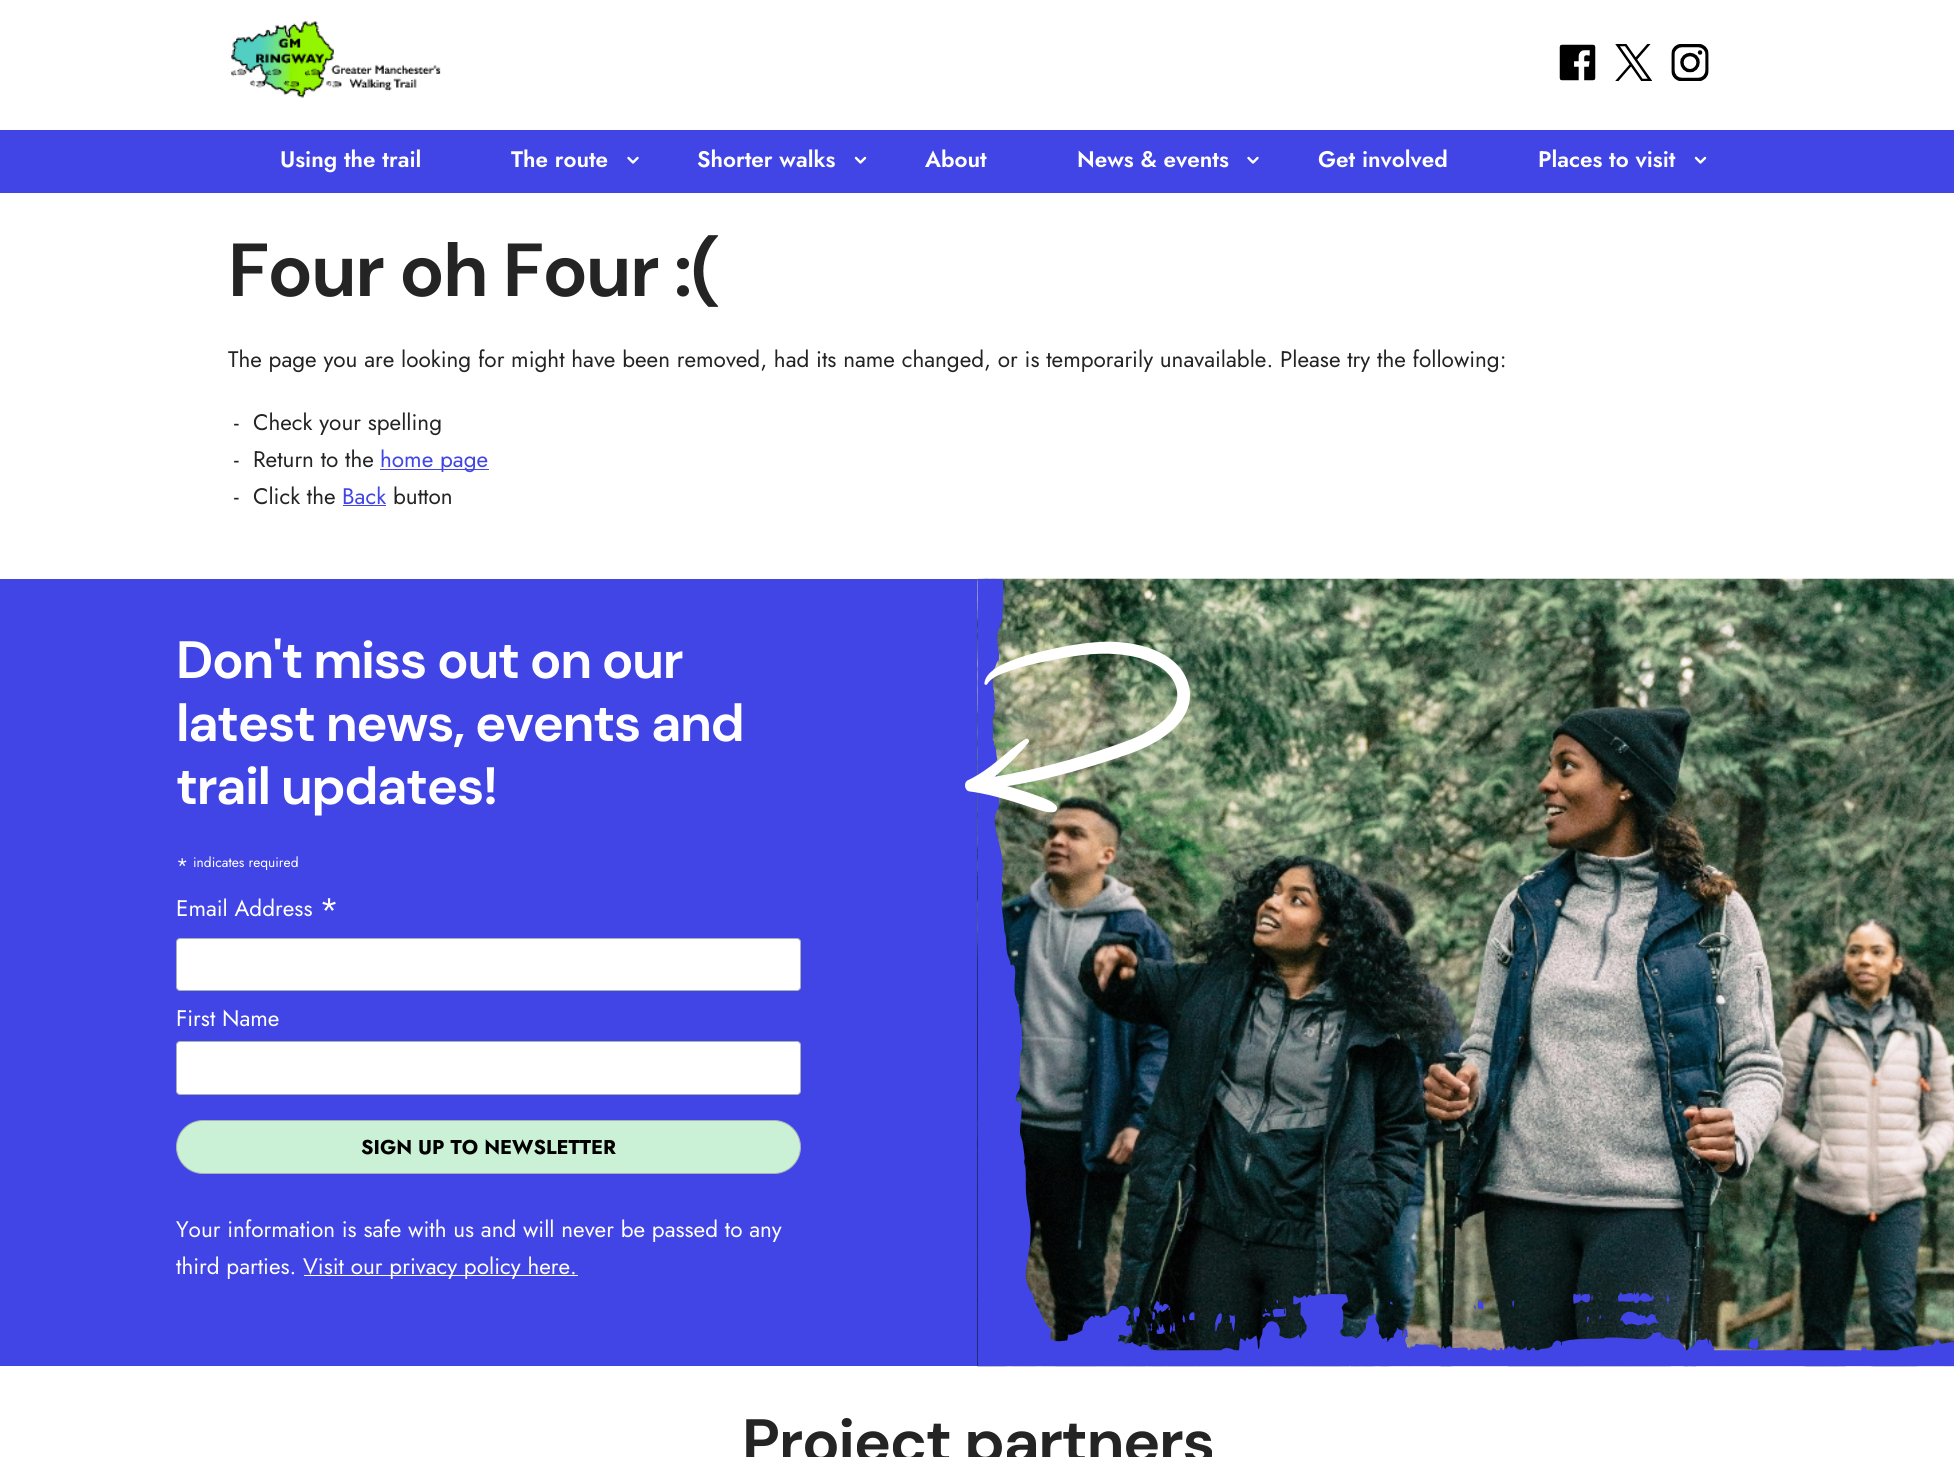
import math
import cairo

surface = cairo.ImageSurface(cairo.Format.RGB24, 1954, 1457)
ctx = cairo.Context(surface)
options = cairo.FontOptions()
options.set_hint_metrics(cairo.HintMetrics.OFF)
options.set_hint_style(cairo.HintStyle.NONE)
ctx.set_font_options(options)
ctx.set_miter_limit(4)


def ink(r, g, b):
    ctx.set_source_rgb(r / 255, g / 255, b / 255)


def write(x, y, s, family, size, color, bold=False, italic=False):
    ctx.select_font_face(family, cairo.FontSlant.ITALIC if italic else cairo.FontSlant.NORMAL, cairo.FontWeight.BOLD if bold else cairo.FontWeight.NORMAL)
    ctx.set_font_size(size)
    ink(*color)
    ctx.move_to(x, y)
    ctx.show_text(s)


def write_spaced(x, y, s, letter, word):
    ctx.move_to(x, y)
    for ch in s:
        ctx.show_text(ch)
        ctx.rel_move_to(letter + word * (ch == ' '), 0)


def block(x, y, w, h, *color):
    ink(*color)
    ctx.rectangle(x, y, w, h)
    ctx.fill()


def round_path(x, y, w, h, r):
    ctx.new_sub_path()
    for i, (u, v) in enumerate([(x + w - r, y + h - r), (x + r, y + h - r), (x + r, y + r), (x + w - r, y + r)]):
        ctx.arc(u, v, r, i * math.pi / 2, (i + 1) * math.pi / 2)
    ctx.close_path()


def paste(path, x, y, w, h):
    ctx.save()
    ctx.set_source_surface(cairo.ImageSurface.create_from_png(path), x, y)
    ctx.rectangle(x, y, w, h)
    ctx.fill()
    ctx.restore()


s1 = dict(family="Jost SemiBold", size=22.5, color=(255, 255, 255))
s2 = dict(family="Jost", size=22.5, color=(36, 36, 36))
s3 = dict(family="Jost", size=22.5, color=(65, 69, 229))
s4 = dict(family="Jost", size=21, color=(255, 255, 255))
s5 = dict(family="Jost", size=13.75, color=(255, 255, 255))
s6 = dict(family="Jost", size=22.5, color=(255, 255, 255))
s7 = dict(family="Jost", size=34, color=(255, 255, 255))
s8 = dict(family="Jost", size=20, color=(0, 0, 0), bold=True)

ink(255, 255, 255)
ctx.paint()
paste("pic1.png", 231, 21, 210, 77)
paste("pic2.png", 1559, 44, 37, 37)
paste("pic3.png", 1615, 44, 37, 37)
paste("pic4.png", 1671, 44, 38, 37)
block(0, 130, 1954, 63, 65, 69, 229)
write(280, 167, "Using the trail", **s1)
write(511, 167, "The route", **s1)
ctx.new_path()
ctx.move_to(628.5, 158)
ctx.line_to(633, 162.5)
ctx.line_to(637.5, 158)
ctx.set_line_width(2.4)
ctx.set_line_cap(cairo.LineCap.ROUND)
ctx.set_line_join(cairo.LineJoin.ROUND)
ctx.stroke()
write(697, 167, "Shorter walks", **s1)
ctx.new_path()
ctx.move_to(856, 158)
ctx.line_to(860.5, 162.5)
ctx.line_to(865, 158)
ctx.stroke()
write(925, 167, "About", **s1)
write(1077, 167, "News & events", **s1)
ctx.new_path()
ctx.move_to(1248.5, 158)
ctx.line_to(1253, 162.5)
ctx.line_to(1257.5, 158)
ctx.stroke()
write(1318, 167, "Get involved", **s1)
write(1538, 167, "Places to visit", **s1)
ctx.new_path()
ctx.move_to(1696, 158)
ctx.line_to(1700.5, 162.5)
ctx.line_to(1705, 158)
ctx.stroke()
ctx.select_font_face("DM Sans", cairo.FontSlant.NORMAL, cairo.FontWeight.BOLD)
ctx.set_font_size(75)
ink(36, 36, 36)
write_spaced(228, 296, "Four oh Four :(", -1.75, 0)
write(228, 367, "The page you are looking for might have been removed, had its name changed, or is temporarily unavailable. Please try the following:", **s2)
write(234, 430, "-", **s2)
write(253, 430, "Check your spelling", **s2)
write(234, 467, "-", **s2)
write(253, 467, "Return to the", **s2)
block(380, 469, 109, 1, 65, 69, 229)
write(380, 467, "home page", **s3)
write(234, 504, "-", **s2)
write(253, 504, "Click the", **s2)
write(342, 504, "Back", **s3)
block(343, 505, 43, 1, 65, 69, 229)
write(393, 504, "button", **s2)
block(0, 579, 978, 787, 65, 69, 229)
ctx.select_font_face("DM Sans", cairo.FontSlant.NORMAL, cairo.FontWeight.BOLD)
ctx.set_font_size(52.5)
ink(255, 255, 255)
write_spaced(176, 678, "Don't miss out on our", -1.4, 0)
write_spaced(176, 741, "latest news, events and", -1.4, 0)
write_spaced(176, 804, "trail updates!", -1.4, 0)
write(176, 873, "*", **s4)
write(193, 867, "indicates required", **s5)
write(176, 916, "Email Address", **s6)
write(319, 922, "*", **s7)
round_path(176.5, 938.5, 624, 52, 3.5)
ctx.fill_preserve()
ink(171, 176, 178)
ctx.set_line_width(1)
ctx.set_line_cap(cairo.LineCap.BUTT)
ctx.set_line_join(cairo.LineJoin.MITER)
ctx.stroke()
write(176, 1026, "First Name", **s6)
round_path(176.5, 1041.5, 624, 53, 3.5)
ctx.fill_preserve()
ink(171, 176, 178)
ctx.stroke()
ink(202, 240, 214)
round_path(176.5, 1120.5, 624, 53, 26.5)
ctx.fill_preserve()
ink(171, 176, 178)
ctx.stroke()
write(361, 1154, "SIGN UP TO NEWSLETTER", **s8)
write(176, 1237, "Your information is safe with us and will never be passed to any", **s6)
write(176, 1274, "third parties.", **s6)
block(304, 1275, 274, 1, 255, 255, 255)
write(303, 1274, "Visit our privacy policy here.", **s6)
paste("pic5.png", 977, 578, 977, 789)
paste("pic6.png", 978, 579, 976, 787)
paste("pic7.png", 965, 641, 225, 172)
ctx.select_font_face("DM Sans", cairo.FontSlant.NORMAL, cairo.FontWeight.BOLD)
ctx.set_font_size(62.5)
ink(36, 36, 36)
write_spaced(742, 1463, "Project partners", -1.4, 0)
surface.write_to_png("screenshot.png")
